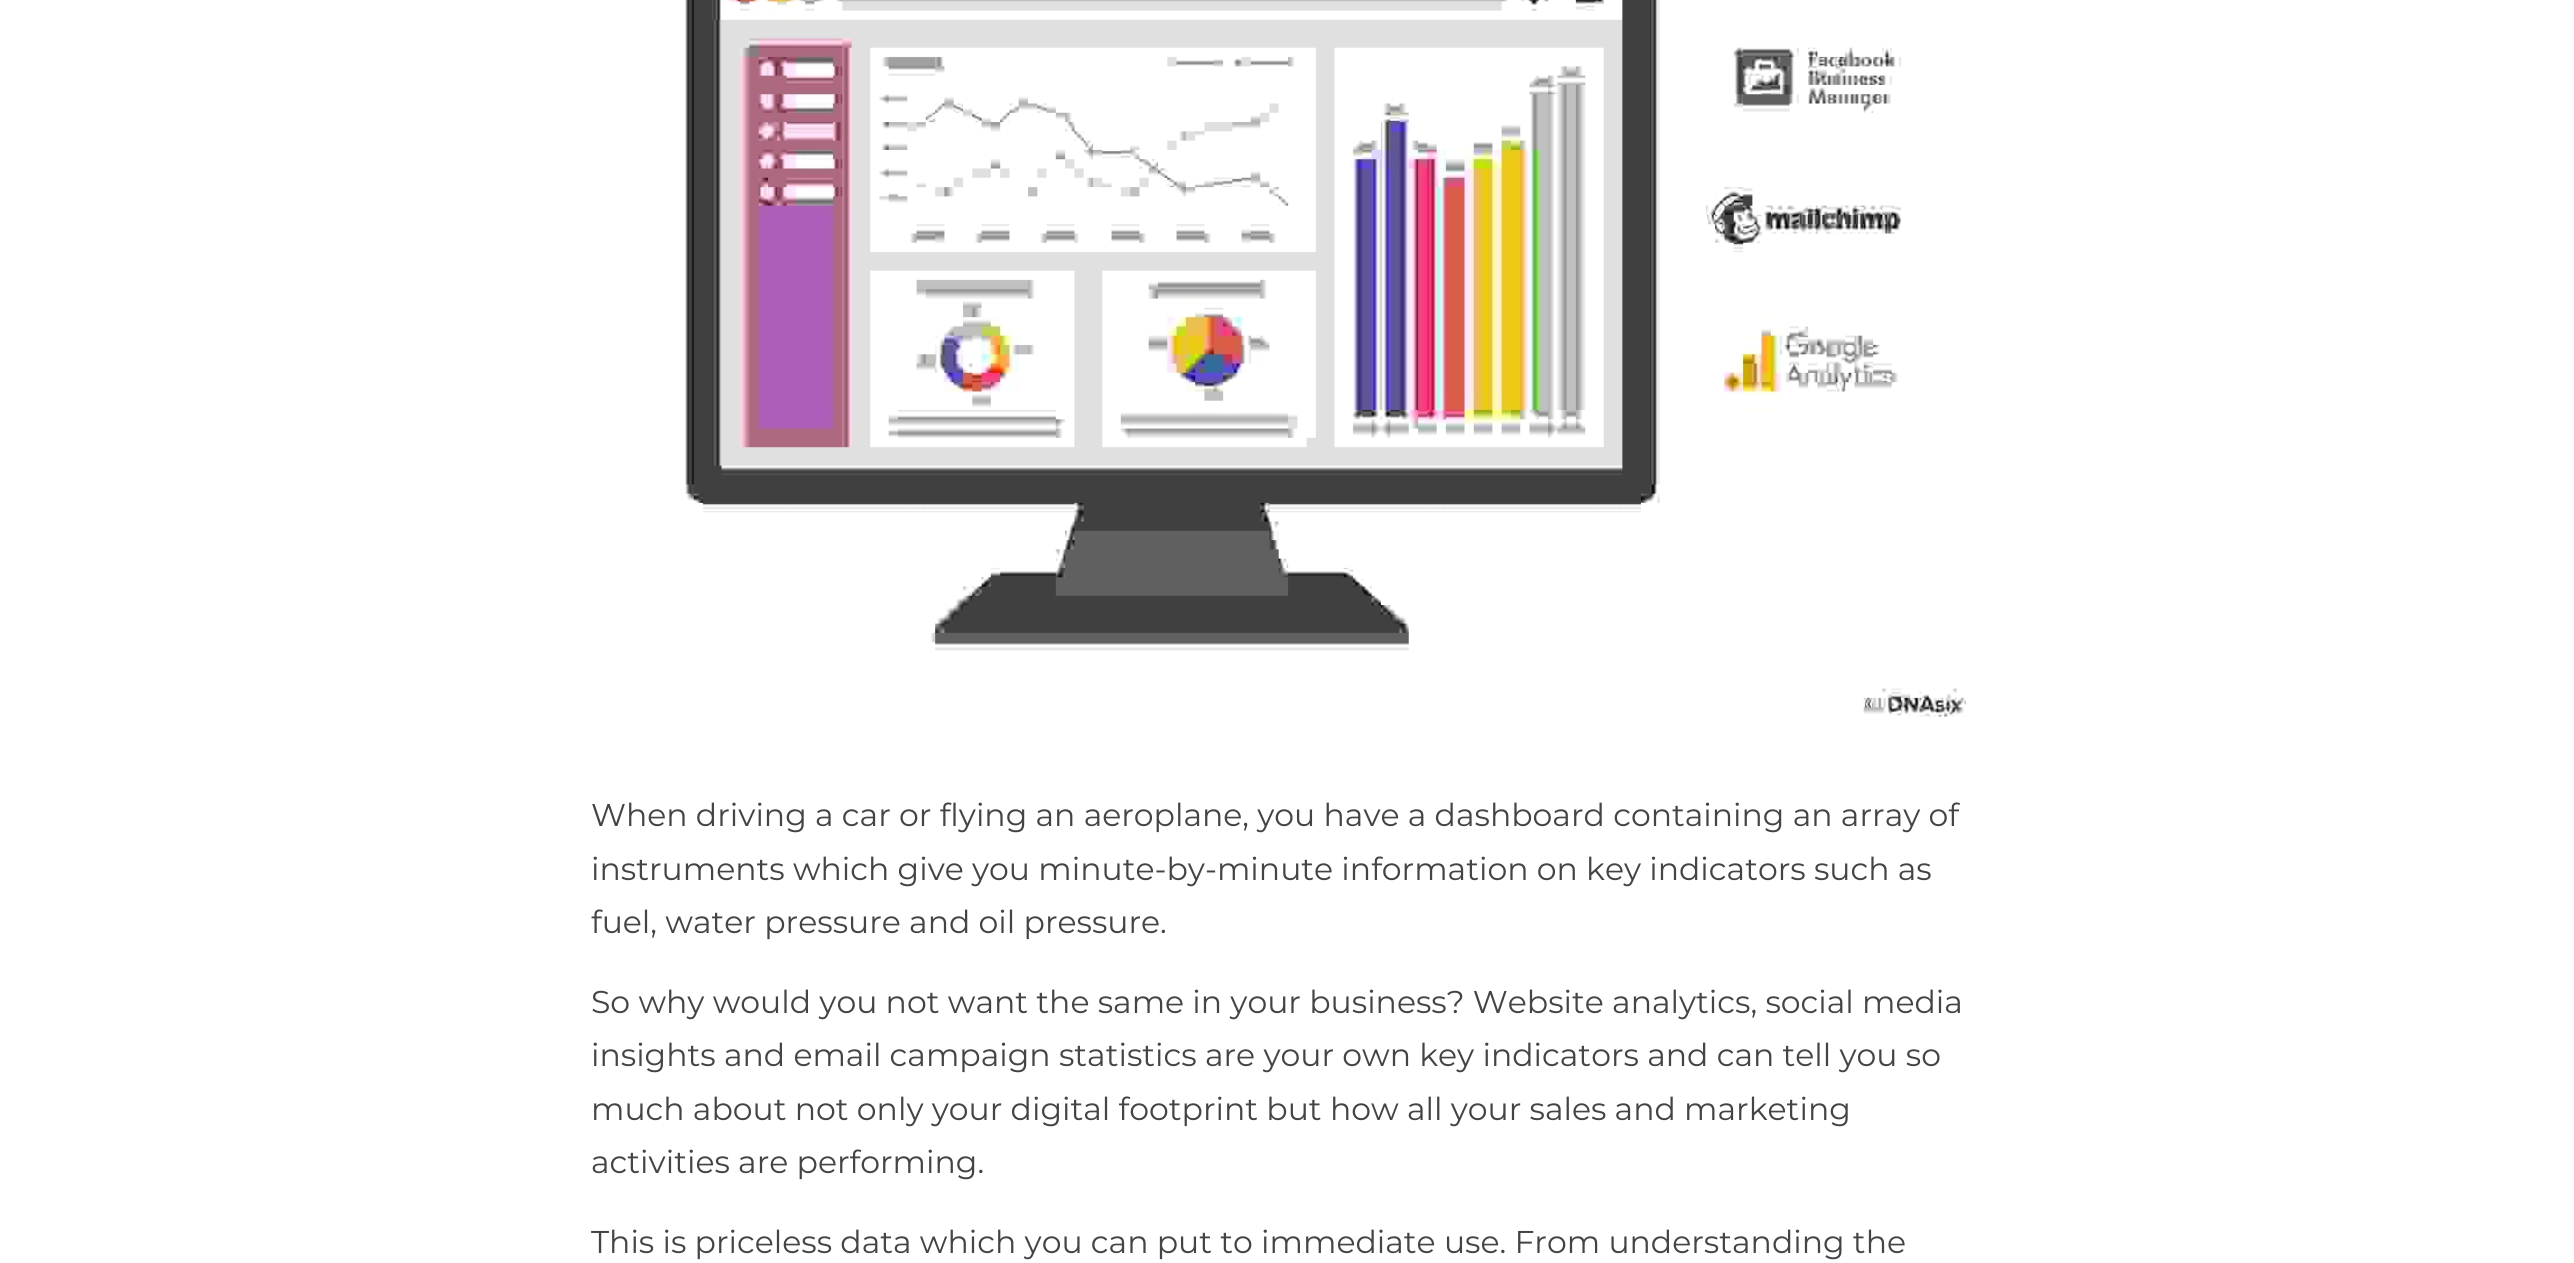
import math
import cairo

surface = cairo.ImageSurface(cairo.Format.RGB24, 2574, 1263)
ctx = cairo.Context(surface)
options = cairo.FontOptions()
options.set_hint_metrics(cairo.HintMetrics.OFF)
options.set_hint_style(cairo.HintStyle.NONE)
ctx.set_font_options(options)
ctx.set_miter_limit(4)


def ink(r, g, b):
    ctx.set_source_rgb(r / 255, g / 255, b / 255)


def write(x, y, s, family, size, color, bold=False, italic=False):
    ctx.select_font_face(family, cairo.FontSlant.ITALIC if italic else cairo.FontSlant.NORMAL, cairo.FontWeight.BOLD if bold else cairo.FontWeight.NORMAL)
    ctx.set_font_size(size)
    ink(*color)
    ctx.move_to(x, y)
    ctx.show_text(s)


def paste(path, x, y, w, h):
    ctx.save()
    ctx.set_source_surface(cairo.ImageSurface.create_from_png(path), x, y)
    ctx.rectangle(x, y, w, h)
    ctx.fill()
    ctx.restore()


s1 = dict(family="Montserrat", size=31.5, color=(68, 68, 68))

ink(255, 255, 255)
ctx.paint()
paste("pic1.png", 685, 0, 1282, 717)
write(591, 826, "When driving a car or flying an aeroplane, you have a dashboard containing an array of", **s1)
write(591, 880, "instruments which give you minute-by-minute information on key indicators such as", **s1)
write(591, 933, "fuel, water pressure and oil pressure.", **s1)
write(591, 1013, "So why would you not want the same in your business? Website analytics, social media", **s1)
write(591, 1066, "insights and email campaign statistics are your own key indicators and can tell you so", **s1)
write(591, 1120, "much about not only your digital footprint but how all your sales and marketing", **s1)
write(591, 1173, "activities are performing.", **s1)
write(591, 1253, "This is priceless data which you can put to immediate use. From understanding the", **s1)
surface.write_to_png("screenshot.png")
